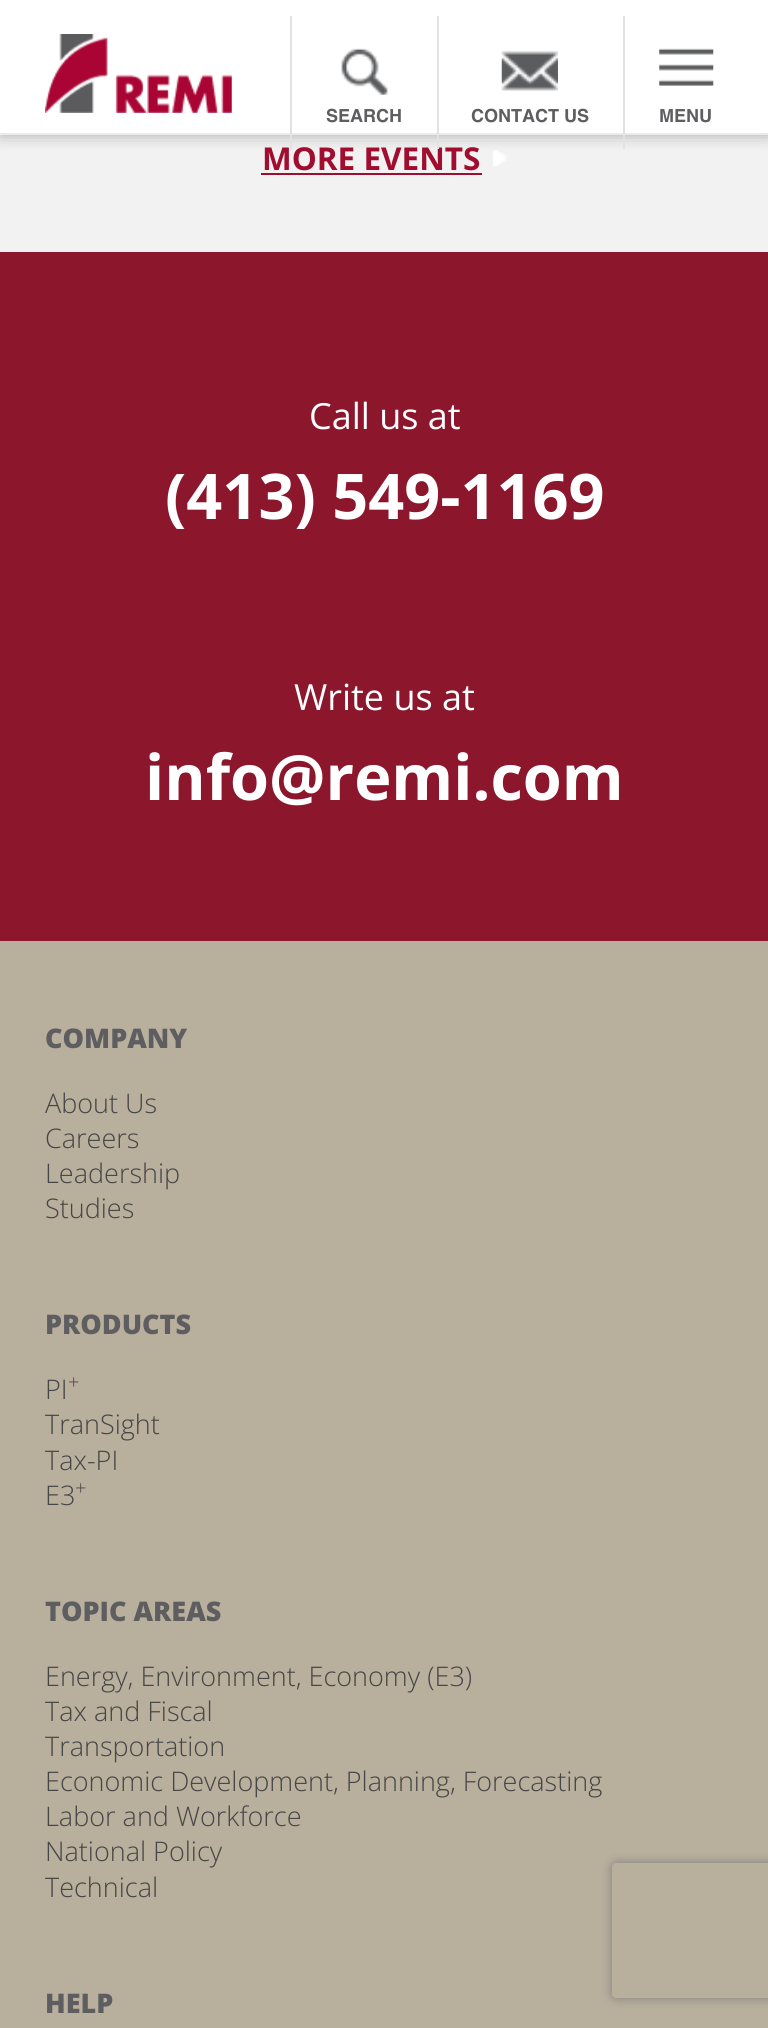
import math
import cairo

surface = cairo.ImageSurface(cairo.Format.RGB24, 768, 2028)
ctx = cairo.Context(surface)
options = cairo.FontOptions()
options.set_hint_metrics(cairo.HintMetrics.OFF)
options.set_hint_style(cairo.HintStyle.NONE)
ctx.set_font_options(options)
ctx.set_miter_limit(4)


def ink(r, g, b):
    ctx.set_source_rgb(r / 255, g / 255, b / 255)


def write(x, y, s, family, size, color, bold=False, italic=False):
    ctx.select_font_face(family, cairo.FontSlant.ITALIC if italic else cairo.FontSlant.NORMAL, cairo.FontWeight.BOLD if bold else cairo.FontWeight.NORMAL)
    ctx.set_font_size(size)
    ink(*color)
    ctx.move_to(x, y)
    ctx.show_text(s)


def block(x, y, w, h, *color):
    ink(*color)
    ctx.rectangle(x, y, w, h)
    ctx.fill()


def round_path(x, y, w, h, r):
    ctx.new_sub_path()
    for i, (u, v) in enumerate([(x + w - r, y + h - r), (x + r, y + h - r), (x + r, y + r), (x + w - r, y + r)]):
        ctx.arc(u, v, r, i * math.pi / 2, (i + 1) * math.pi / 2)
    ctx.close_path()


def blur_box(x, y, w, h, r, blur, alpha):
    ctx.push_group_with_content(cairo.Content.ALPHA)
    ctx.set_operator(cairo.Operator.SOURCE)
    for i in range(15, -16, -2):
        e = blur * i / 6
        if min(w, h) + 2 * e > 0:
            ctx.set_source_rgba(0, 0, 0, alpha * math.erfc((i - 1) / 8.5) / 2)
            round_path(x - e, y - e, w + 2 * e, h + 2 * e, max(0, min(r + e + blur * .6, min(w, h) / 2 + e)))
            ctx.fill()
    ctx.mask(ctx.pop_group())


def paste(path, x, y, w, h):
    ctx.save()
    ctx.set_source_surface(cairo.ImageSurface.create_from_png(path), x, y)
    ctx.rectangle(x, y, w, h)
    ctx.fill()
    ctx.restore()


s1 = dict(family="Open Sans", size=31.5, color=(160, 13, 46), bold=True)
s2 = dict(family="Helvetica", size=18, color=(94, 93, 96), bold=True)
s3 = dict(family="Open Sans", size=36, color=(255, 255, 255))
s4 = dict(family="Open Sans", size=63, color=(255, 255, 255), bold=True)
s5 = dict(family="Open Sans ExtraBold", size=27, color=(94, 93, 96))
s6 = dict(family="Open Sans Light", size=27, color=(70, 70, 70))
s7 = dict(family="Open Sans Light", size=20, color=(70, 70, 70))

ink(242, 242, 242)
ctx.paint()
paste("pic5.png", 493, 150, 14, 17)
ink(0, 0, 0)
blur_box(0, 0, 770, 135, 0, 8, 0.3)
block(0, 0, 768, 133, 255, 255, 255)
block(0, 133, 768, 2, 235, 235, 235)
paste("pic1.png", 45, 34, 187, 79)
write(262, 170, "MORE EVENTS", **s1)
block(290, 16, 2, 133, 226, 226, 226)
paste("pic2.png", 341, 48, 47, 47)
write(326, 122, "SEARCH", **s2)
block(437, 16, 2, 133, 226, 226, 226)
paste("pic3.png", 501, 50, 57, 41)
write(471, 122, "CONTACT US", **s2)
block(623, 16, 2, 133, 226, 226, 226)
paste("pic4.png", 659, 48, 55, 38)
write(659, 122, "MENU", **s2)
block(261, 173, 221, 2, 160, 13, 46)
block(0, 252, 768, 689, 140, 23, 44)
write(309, 429, "Call us at", **s3)
write(165, 519, "(413) 549-1169", **s4)
write(294, 710, "Write us at", **s3)
write(145, 800, "info@remi.com", **s4)
block(0, 941, 768, 1087, 185, 175, 157)
write(45, 1048, "COMPANY", **s5)
write(45, 1113, "About Us", **s6)
write(45, 1148, "Careers", **s6)
write(45, 1183, "Leadership", **s6)
write(45, 1218, "Studies", **s6)
write(45, 1334, "PRODUCTS", **s5)
write(45, 1399, "PI", **s6)
write(68, 1389, "+", **s7)
write(45, 1434, "TranSight", **s6)
write(45, 1470, "Tax-PI", **s6)
write(45, 1505, "E3", **s6)
write(75, 1495, "+", **s7)
write(45, 1621, "TOPIC AREAS", **s5)
write(45, 1686, "Energy, Environment, Economy (E3)", **s6)
write(45, 1721, "Tax and Fiscal", **s6)
write(45, 1756, "Transportation", **s6)
write(45, 1791, "Economic Development, Planning, Forecasting", **s6)
write(45, 1826, "Labor and Workforce", **s6)
write(45, 1861, "National Policy", **s6)
write(45, 1897, "Technical", **s6)
write(45, 2013, "HELP", **s5)
ctx.save()
ctx.set_fill_rule(cairo.FillRule.EVEN_ODD)
ctx.new_path()
ctx.move_to(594, 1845)
ctx.line_to(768, 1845)
ctx.line_to(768, 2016)
ctx.line_to(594, 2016)
ctx.close_path()
ctx.move_to(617, 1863)
ctx.line_to(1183, 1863)
ctx.curve_to(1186, 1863, 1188, 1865, 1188, 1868)
ctx.line_to(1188, 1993)
ctx.curve_to(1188, 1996, 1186, 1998, 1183, 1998)
ctx.line_to(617, 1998)
ctx.curve_to(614, 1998, 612, 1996, 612, 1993)
ctx.line_to(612, 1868)
ctx.curve_to(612, 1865, 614, 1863, 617, 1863)
ctx.close_path()
ctx.clip()
ink(128, 128, 128)
blur_box(612, 1863, 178, 135, 5, 5.5, 1)
ctx.restore()
surface.write_to_png("screenshot.png")
